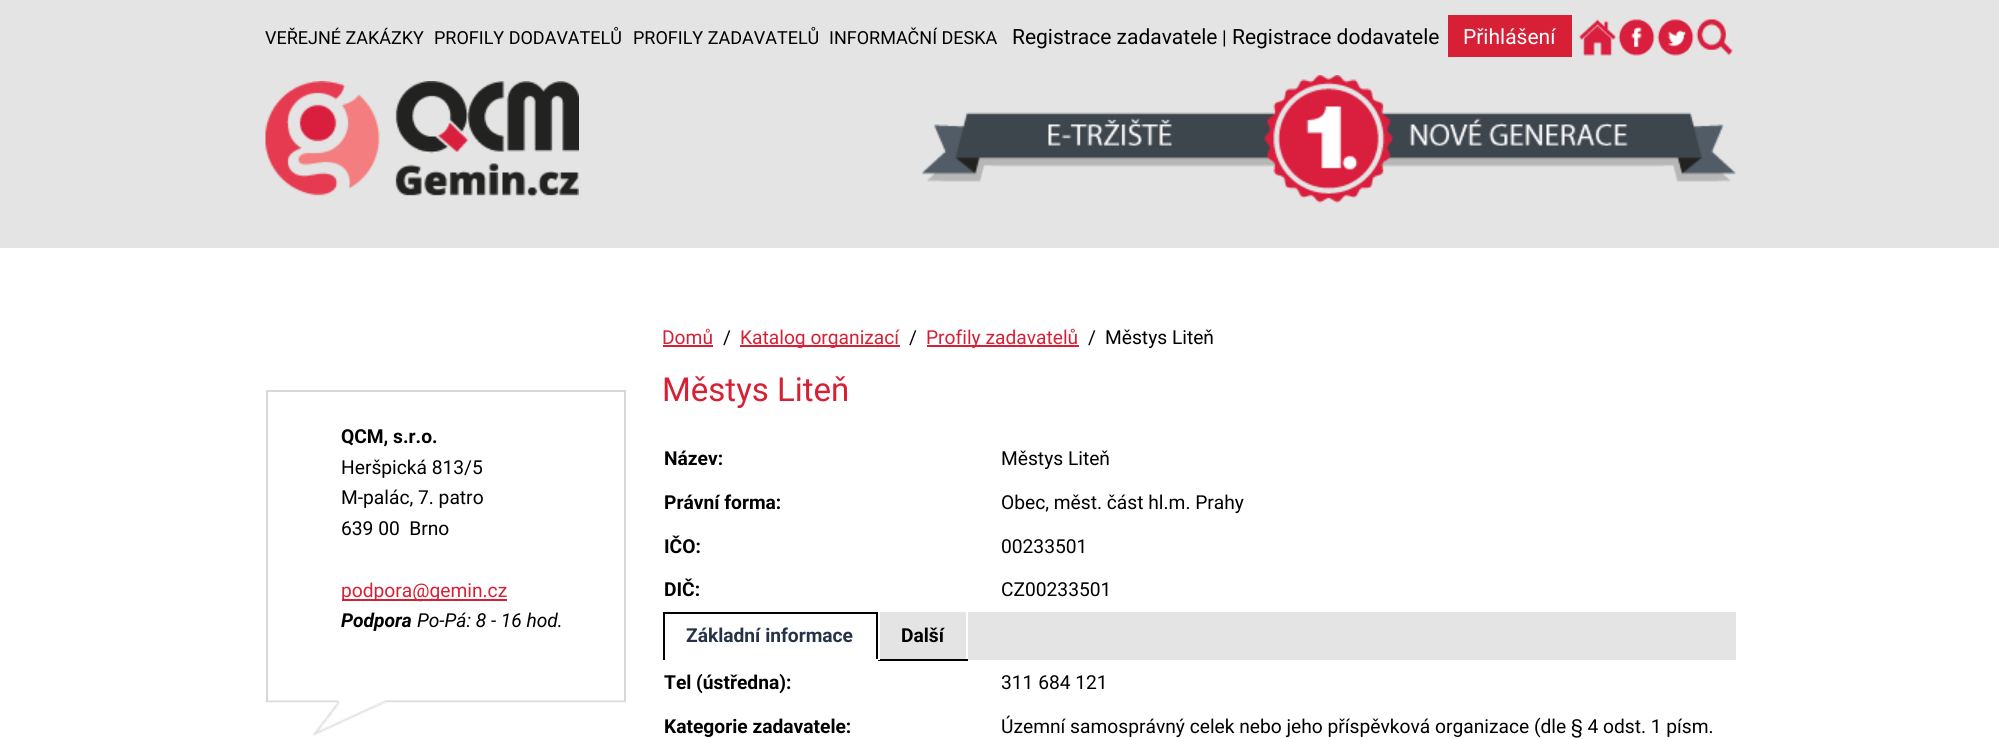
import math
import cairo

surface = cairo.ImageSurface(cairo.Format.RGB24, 1999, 739)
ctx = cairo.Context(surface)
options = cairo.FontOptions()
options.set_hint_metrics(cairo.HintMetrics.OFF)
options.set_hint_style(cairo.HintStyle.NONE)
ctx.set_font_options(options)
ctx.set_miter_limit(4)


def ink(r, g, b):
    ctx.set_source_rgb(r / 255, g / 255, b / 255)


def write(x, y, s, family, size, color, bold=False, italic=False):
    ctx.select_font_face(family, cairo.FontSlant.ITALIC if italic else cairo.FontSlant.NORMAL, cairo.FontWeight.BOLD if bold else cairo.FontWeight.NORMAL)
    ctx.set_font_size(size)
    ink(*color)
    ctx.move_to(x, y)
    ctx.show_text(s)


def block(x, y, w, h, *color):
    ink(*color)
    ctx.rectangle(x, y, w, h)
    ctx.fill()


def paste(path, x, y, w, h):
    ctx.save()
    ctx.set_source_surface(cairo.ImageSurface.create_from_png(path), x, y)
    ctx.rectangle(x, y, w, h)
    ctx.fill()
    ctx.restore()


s1 = dict(family="Roboto", size=18, color=(0, 0, 0))
s2 = dict(family="Roboto", size=21, color=(0, 0, 0))
s3 = dict(family="Roboto", size=19.2, color=(0, 0, 0))
s4 = dict(family="Roboto", size=21, color=(255, 255, 255))
s5 = dict(family="Roboto", size=19.2, color=(0, 0, 0), bold=True)
s6 = dict(family="Roboto", size=19.2, color=(215, 32, 53))
s7 = dict(family="Roboto", size=19.2, color=(0, 0, 0), bold=True, italic=True)
s8 = dict(family="Roboto", size=19.2, color=(0, 0, 0), italic=True)
s9 = dict(family="Roboto", size=33, color=(215, 32, 53))
s10 = dict(family="Roboto", size=19.2, color=(38, 50, 72), bold=True)

ink(255, 255, 255)
ctx.paint()
block(0, 0, 1999, 248, 228, 228, 228)
write(265, 44, "VEŘEJNÉ ZAKÁZKY", **s1)
write(434, 44, "PROFILY DODAVATELŮ", **s1)
write(633, 44, "PROFILY ZADAVATELŮ", **s1)
write(829, 44, "INFORMAČNÍ DESKA", **s1)
write(1012, 44, "Registrace zadavatele", **s2)
write(1222, 44, "|", **s3)
write(1232, 44, "Registrace dodavatele", **s2)
block(1448, 15, 124, 42, 215, 32, 53)
write(1463, 44, "Přihlášení", **s4)
paste("pic1.png", 1579, 19, 37, 37)
paste("pic2.png", 1618, 19, 37, 37)
paste("pic3.png", 1657, 19, 37, 37)
paste("pic4.png", 1696, 19, 37, 37)
paste("pic5.png", 265, 81, 314, 116)
paste("pic6.png", 922, 75, 814, 128)
paste("pic7.png", 265, 700, 361, 36)
block(266, 390, 360, 2, 215, 215, 215)
block(624, 390, 2, 311, 215, 215, 215)
block(266, 390, 2, 311, 215, 215, 215)
write(341, 443, "QCM, s.r.o.", **s5)
write(341, 474, "Heršpická 813/5", **s3)
write(341, 504, "M-palác, 7. patro", **s3)
write(341, 535, "639 00  Brno", **s3)
block(342, 599, 165, 2, 215, 32, 53)
write(341, 597, "podpora@gemin.cz", **s6)
write(341, 627, "Podpora", **s7)
write(417, 627, "Po-Pá: 8 - 16 hod.", **s8)
write(662, 344, "Domů", **s6)
block(663, 345, 50, 2, 215, 32, 53)
write(723, 344, "/", **s3)
block(740, 345, 160, 2, 215, 32, 53)
write(740, 344, "Katalog organizací", **s6)
write(909, 344, "/", **s3)
block(927, 345, 152, 2, 215, 32, 53)
write(926, 344, "Profily zadavatelů", **s6)
write(1088, 344, "/", **s3)
write(1105, 344, "Městys Liteň", **s3)
write(662, 401, "Městys Liteň", **s9)
write(664, 465, "Název:", **s5)
write(1001, 465, "Městys Liteň", **s3)
write(664, 509, "Právní forma:", **s5)
write(1001, 509, "Obec, měst. část hl.m. Prahy", **s3)
write(664, 553, "IČO:", **s5)
write(1001, 553, "00233501", **s3)
write(664, 596, "DIČ:", **s5)
write(1001, 596, "CZ00233501", **s3)
block(880, 612, 856, 48, 228, 228, 228)
block(663, 612, 215, 2, 0, 0, 0)
block(876, 612, 2, 48, 0, 0, 0)
block(876, 659, 2, 1, 255, 255, 255)
block(663, 612, 2, 48, 0, 0, 0)
write(686, 642, "Základní informace", **s10)
block(966, 612, 2, 48, 255, 255, 255)
block(878, 659, 90, 2, 0, 0, 0)
block(878, 659, 2, 1, 255, 255, 255)
write(901, 642, "Další", **s5)
write(664, 689, "Tel (ústředna):", **s5)
write(1001, 689, "311 684 121", **s3)
write(664, 733, "Kategorie zadavatele:", **s5)
write(1001, 733, "Územní samosprávný celek nebo jeho příspěvková organizace (dle § 4 odst. 1 písm.", **s3)
surface.write_to_png("screenshot.png")
